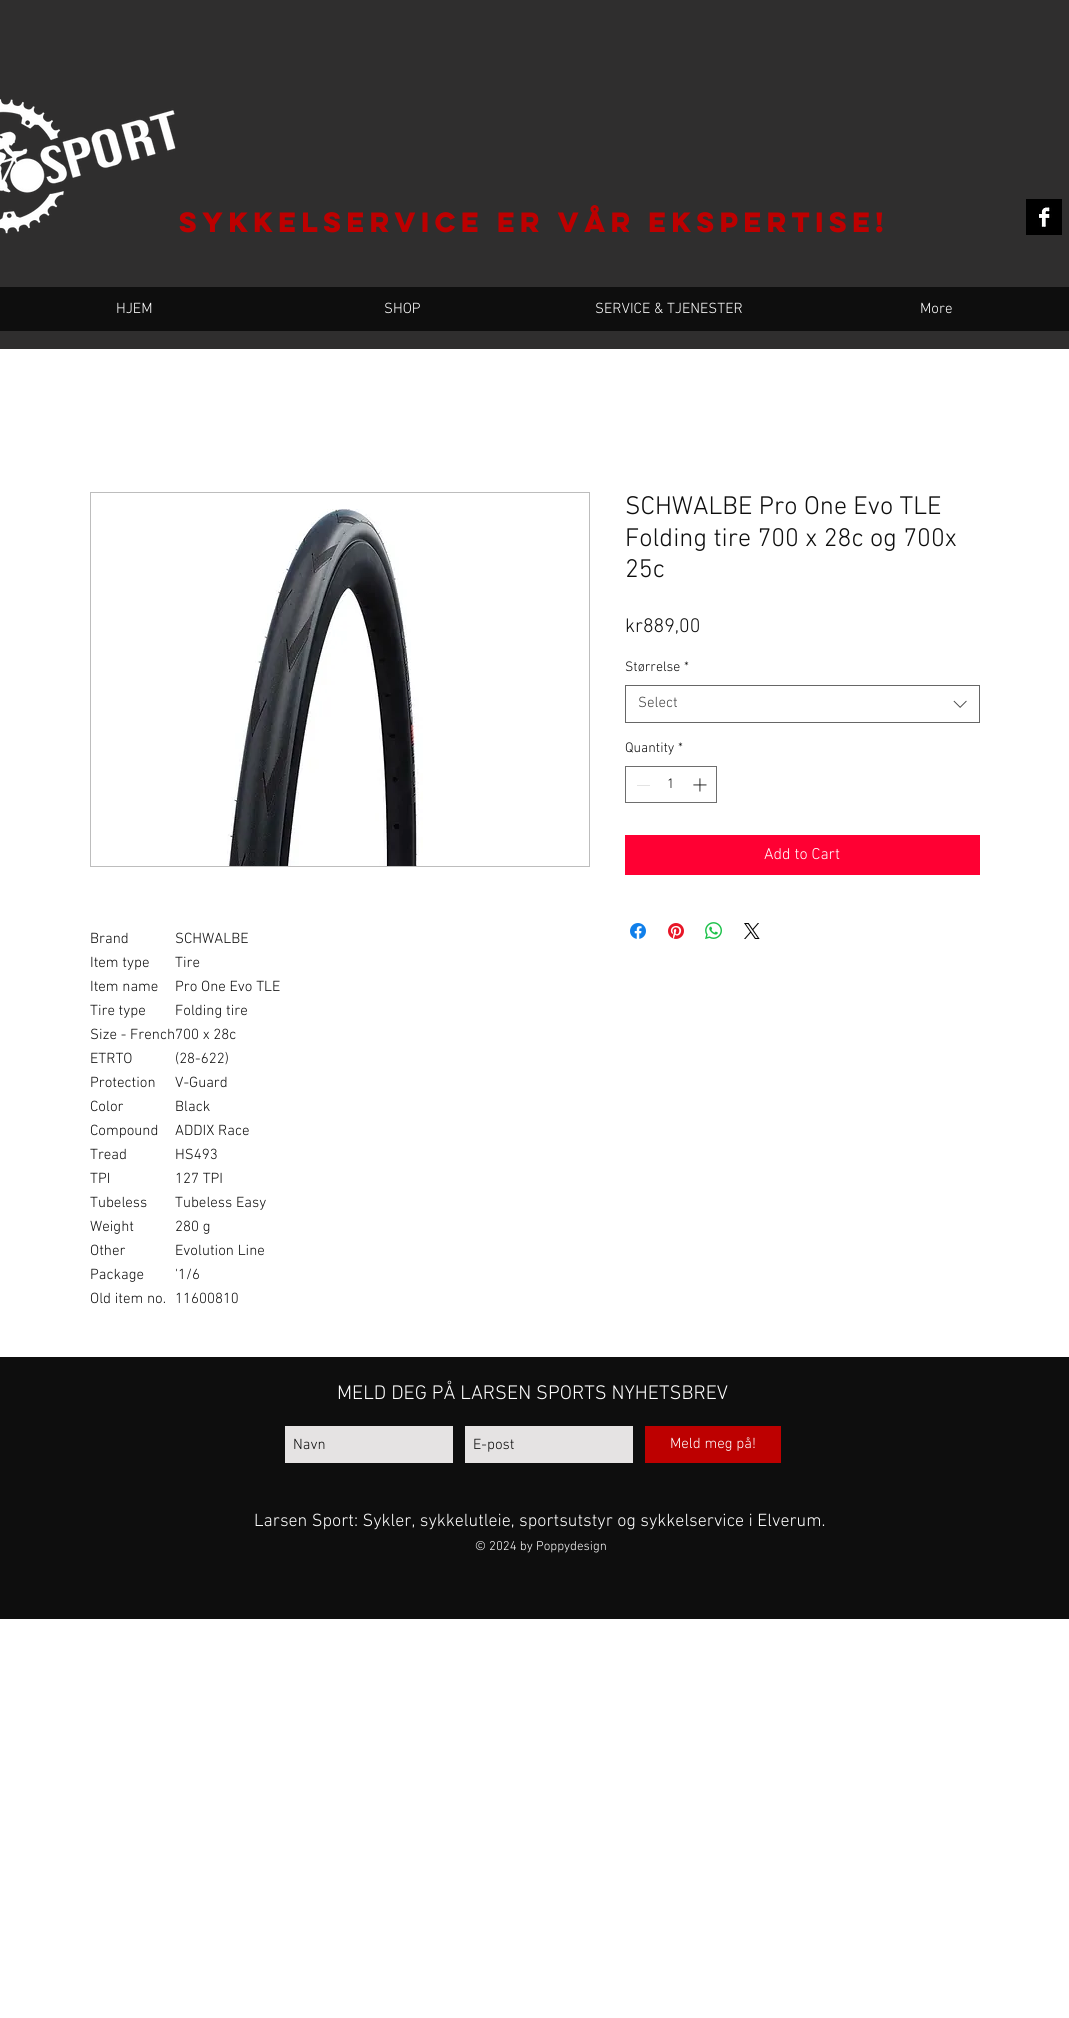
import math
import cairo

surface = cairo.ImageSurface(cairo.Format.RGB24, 1069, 2018)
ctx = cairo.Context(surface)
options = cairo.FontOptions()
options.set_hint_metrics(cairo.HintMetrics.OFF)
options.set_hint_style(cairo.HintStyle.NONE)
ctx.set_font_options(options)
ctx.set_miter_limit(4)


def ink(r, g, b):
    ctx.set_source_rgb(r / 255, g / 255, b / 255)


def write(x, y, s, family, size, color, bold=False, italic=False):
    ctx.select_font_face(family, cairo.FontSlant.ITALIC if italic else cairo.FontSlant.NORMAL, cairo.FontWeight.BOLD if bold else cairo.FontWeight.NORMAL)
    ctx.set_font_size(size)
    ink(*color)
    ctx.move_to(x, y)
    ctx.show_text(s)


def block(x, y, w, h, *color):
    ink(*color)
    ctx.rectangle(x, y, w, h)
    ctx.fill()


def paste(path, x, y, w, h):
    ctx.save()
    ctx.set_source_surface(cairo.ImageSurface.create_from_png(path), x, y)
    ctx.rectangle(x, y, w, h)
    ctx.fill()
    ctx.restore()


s1 = dict(family="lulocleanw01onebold", size=25, color=(189, 0, 0), bold=True)
s2 = dict(family="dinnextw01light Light", size=15, color=(255, 255, 255))
s3 = dict(family="dinnextw01light Light", size=26, color=(14, 14, 14))
s4 = dict(family="dinnextw01light Light", size=20, color=(14, 14, 14))
s5 = dict(family="dinnextw01light Light", size=14, color=(14, 14, 14))
s6 = dict(family="dinnextw01light Light", size=15, color=(68, 68, 68))
s7 = dict(family="dinnextw01light Light", size=16, color=(255, 255, 255))
s8 = dict(family="dinnextw01light Light", size=15, color=(14, 14, 14))
s9 = dict(family="dinnextw01light Light", size=20, color=(255, 255, 255))
s10 = dict(family="dinnextw01light Light", size=18, color=(255, 255, 255))
s11 = dict(family="dinnextw01light Light", size=13, color=(255, 255, 255))

ink(255, 255, 255)
ctx.paint()
block(0, 0, 1069, 349, 47, 46, 46)
paste("pic1.png", 0, 99, 176, 135)
write(179, 232, "SYKKELSERVICE er vår ekspertise!", **s1)
paste("pic2.png", 1026, 199, 36, 36)
block(0, 287, 1069, 44, 14, 14, 14)
write(116, 313, "HJEM", **s2)
write(384, 313, "SHOP", **s2)
write(595, 313, "SERVICE & TJENESTER", **s2)
write(920, 313, "More", **s2)
write(625, 514, "SCHWALBE Pro One Evo TLE", **s3)
write(625, 546, "Folding tire 700 x 28c og 700x", **s3)
write(625, 577, "25c", **s3)
write(625, 632, "kr889,00", **s4)
write(625, 671, "Størrelse", **s5)
write(684, 671, "*", **s5)
ctx.rectangle(625.5, 685.5, 354, 37)
ink(102, 102, 102)
ctx.set_line_width(1)
ctx.stroke()
write(638, 707, "Select", **s6)
paste("pic3.png", 953, 700, 14, 8)
write(625, 752, "Quantity", **s5)
write(678, 752, "*", **s5)
ctx.rectangle(625.5, 766.5, 91, 36)
ink(110, 110, 110)
ctx.stroke()
block(637, 785, 13, 1, 227, 227, 227)
write(667, 788, "1", **s5)
paste("pic4.png", 693, 778, 14, 14)
block(625, 835, 355, 40, 255, 0, 51)
write(764, 859, "Add to Cart", **s7)
paste("pic5.png", 630, 923, 16, 16)
paste("pic6.png", 668, 923, 16, 16)
paste("pic7.png", 705, 922, 17, 17)
paste("pic8.png", 744, 923, 16, 16)
ctx.rectangle(90.5, 492.5, 499, 374)
ink(189, 189, 189)
ctx.stroke()
paste("pic9.png", 227, 509, 196, 357)
write(90, 943, "Brand", **s8)
write(175, 943, "SCHWALBE", **s8)
write(90, 967, "Item type", **s8)
write(175, 967, "Tire", **s8)
write(90, 991, "Item name", **s8)
write(175, 991, "Pro One Evo TLE", **s8)
write(90, 1015, "Tire type", **s8)
write(175, 1015, "Folding tire", **s8)
write(90, 1039, "Size - French700 x 28c", **s8)
write(90, 1063, "ETRTO", **s8)
write(175, 1063, "(28-622)", **s8)
write(90, 1087, "Protection", **s8)
write(175, 1087, "V-Guard", **s8)
write(90, 1111, "Color", **s8)
write(175, 1111, "Black", **s8)
write(90, 1135, "Compound", **s8)
write(175, 1135, "ADDIX Race", **s8)
write(90, 1159, "Tread", **s8)
write(175, 1159, "HS493", **s8)
write(90, 1183, "TPI", **s8)
write(175, 1183, "127 TPI", **s8)
write(90, 1207, "Tubeless", **s8)
write(175, 1207, "Tubeless Easy", **s8)
write(90, 1231, "Weight", **s8)
write(175, 1231, "280 g", **s8)
write(90, 1255, "Other", **s8)
write(175, 1255, "Evolution Line", **s8)
write(90, 1279, "Package", **s8)
write(175, 1279, "'1/6", **s8)
write(90, 1303, "Old item no.", **s8)
write(175, 1303, "11600810", **s8)
block(0, 1357, 1069, 262, 14, 14, 14)
write(337, 1399, "MELD DEG PÅ LARSEN SPORTS NYHETSBREV", **s9)
block(285, 1426, 168, 37, 229, 227, 227)
write(293, 1449, "Navn", **s8)
block(465, 1426, 168, 37, 229, 227, 227)
write(473, 1449, "E-post", **s8)
block(645, 1426, 136, 37, 189, 0, 0)
write(670, 1448, "Meld meg på!", **s2)
write(254, 1526, "Larsen Sport: Sykler, sykkelutleie, sportsutstyr og sykkelservice i Elverum.", **s10)
write(475, 1550, "© 2024 by Poppydesign", **s11)
surface.write_to_png("screenshot.png")
